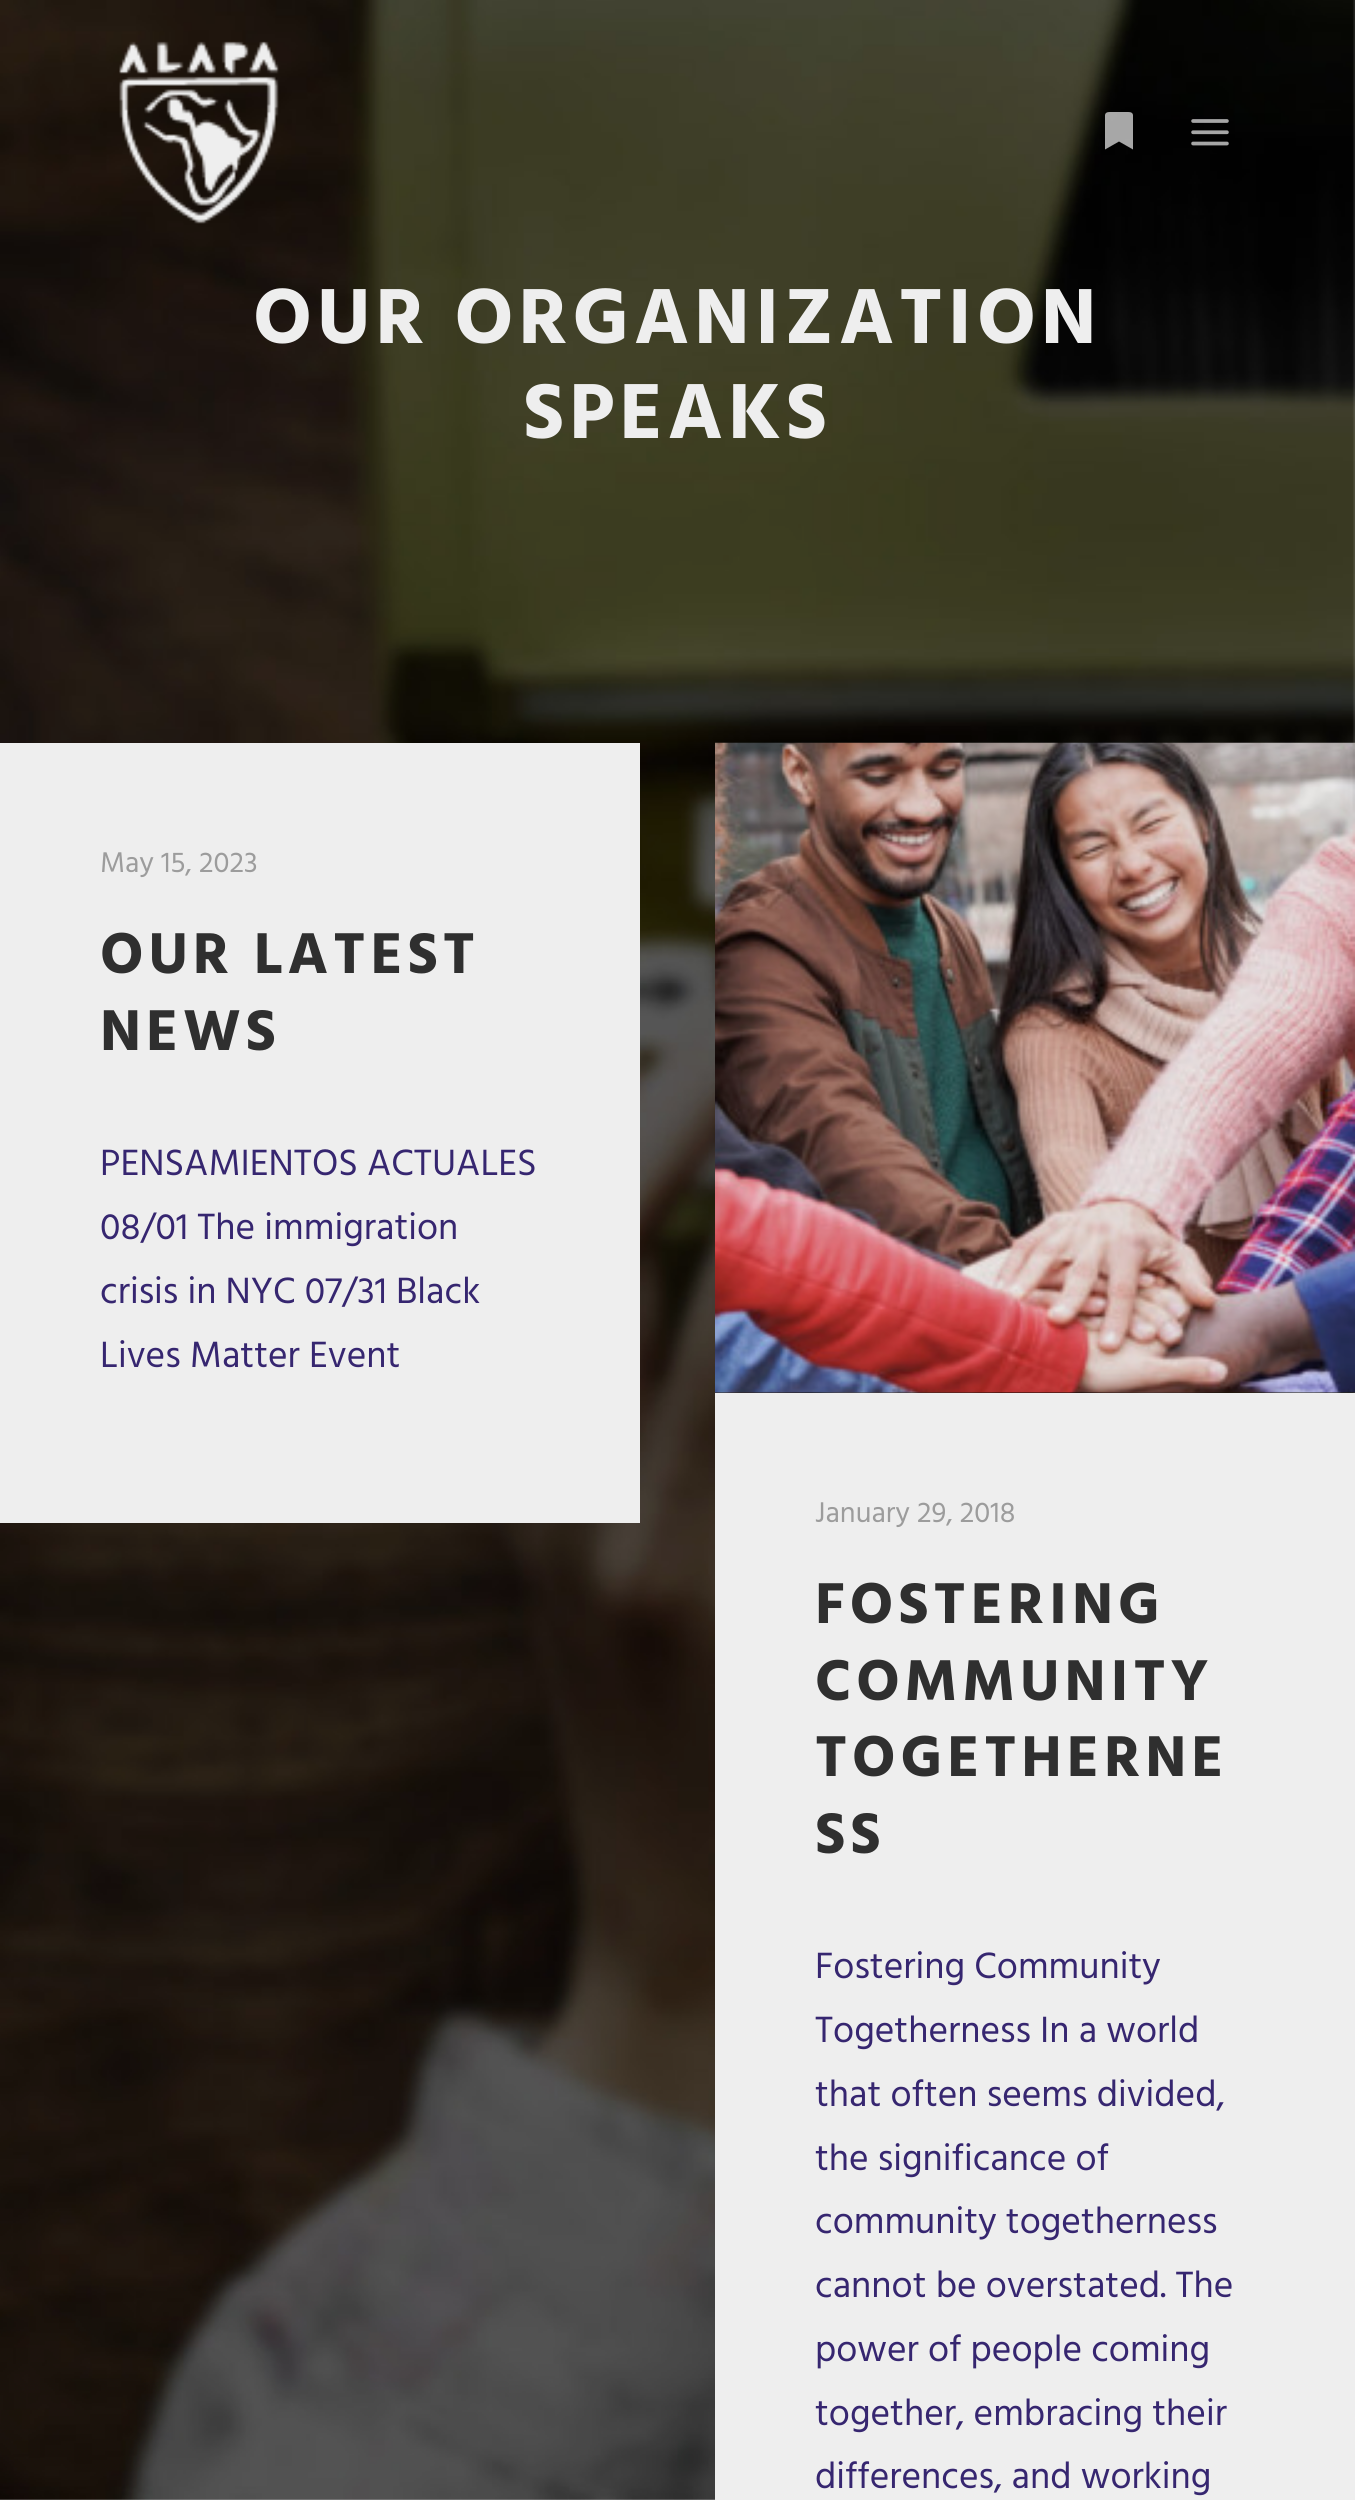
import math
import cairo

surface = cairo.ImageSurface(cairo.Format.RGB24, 1355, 2500)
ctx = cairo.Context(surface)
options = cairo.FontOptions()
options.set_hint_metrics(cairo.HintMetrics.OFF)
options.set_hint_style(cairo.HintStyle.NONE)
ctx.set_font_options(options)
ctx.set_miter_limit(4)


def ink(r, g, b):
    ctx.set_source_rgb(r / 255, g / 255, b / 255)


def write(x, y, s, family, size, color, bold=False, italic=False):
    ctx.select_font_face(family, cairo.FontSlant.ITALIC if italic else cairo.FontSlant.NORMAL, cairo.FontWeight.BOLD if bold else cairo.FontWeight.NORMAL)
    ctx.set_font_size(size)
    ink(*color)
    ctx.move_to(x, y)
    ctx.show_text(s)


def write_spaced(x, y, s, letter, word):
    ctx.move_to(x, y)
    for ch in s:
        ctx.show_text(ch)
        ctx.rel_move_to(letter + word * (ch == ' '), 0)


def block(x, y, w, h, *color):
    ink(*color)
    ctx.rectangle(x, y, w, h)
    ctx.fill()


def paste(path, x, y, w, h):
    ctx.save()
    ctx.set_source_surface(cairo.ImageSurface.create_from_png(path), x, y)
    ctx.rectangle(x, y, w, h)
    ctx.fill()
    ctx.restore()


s1 = dict(family="Hind", size=29.25, color=(156, 156, 156))
s2 = dict(family="Hind", size=37.5, color=(54, 38, 112))

ink(255, 255, 255)
ctx.paint()
paste("pic1.png", 0, 0, 1355, 2500)
paste("pic2.png", 119, 41, 160, 183)
ctx.set_source_rgba(0.933, 0.933, 0.933, 0.7)
ctx.new_path()
ctx.move_to(1105, 149.5)
ctx.line_to(1105, 115)
ctx.curve_to(1105.5, 111.5, 1109.5, 112, 1112, 112)
ctx.line_to(1126, 112)
ctx.curve_to(1128.5, 112, 1132.5, 111.5, 1133, 115)
ctx.line_to(1133, 149.5)
ctx.line_to(1119, 141.5)
ctx.close_path()
ctx.fill()
paste("pic3.png", 1191, 119, 38, 27)
ctx.select_font_face("Hind", cairo.FontSlant.NORMAL, cairo.FontWeight.BOLD)
ctx.set_font_size(80)
ink(238, 238, 238)
write_spaced(253, 343, "OUR ORGANIZATION", 5, 0)
write_spaced(523, 438, "SPEAKS", 5, 0)
block(0, 743, 640, 780, 238, 238, 238)
write(100, 872, "May 15, 2023", **s1)
ctx.select_font_face("Hind", cairo.FontSlant.NORMAL, cairo.FontWeight.BOLD)
ctx.set_font_size(59)
ink(47, 47, 47)
write_spaced(100, 973, "OUR LATEST", 5, 0)
write_spaced(100, 1050, "NEWS", 5, 0)
write(100, 1175, "PENSAMIENTOS ACTUALES", **s2)
write(100, 1239, "08/01 The immigration", **s2)
write(100, 1303, "crisis in NYC 07/31 Black", **s2)
write(100, 1367, "Lives Matter Event", **s2)
paste("pic4.png", 715, 742, 640, 651)
block(715, 1393, 640, 1107, 238, 238, 238)
write(815, 1522, "January 29, 2018", **s1)
ctx.select_font_face("Hind", cairo.FontSlant.NORMAL, cairo.FontWeight.BOLD)
ctx.set_font_size(59)
ink(47, 47, 47)
write_spaced(815, 1623, "FOSTERING", 5, 0)
write_spaced(815, 1700, "COMMUNITY", 5, 0)
write_spaced(815, 1776, "TOGETHERNE", 5, 0)
write_spaced(815, 1853, "SS", 5, 0)
write(815, 1978, "Fostering Community", **s2)
write(815, 2042, "Togetherness In a world", **s2)
write(815, 2106, "that often seems divided,", **s2)
write(815, 2170, "the significance of", **s2)
write(815, 2233, "community togetherness", **s2)
write(815, 2297, "cannot be overstated. The", **s2)
write(815, 2361, "power of people coming", **s2)
write(815, 2425, "together, embracing their", **s2)
write(815, 2488, "differences, and working", **s2)
surface.write_to_png("screenshot.png")
